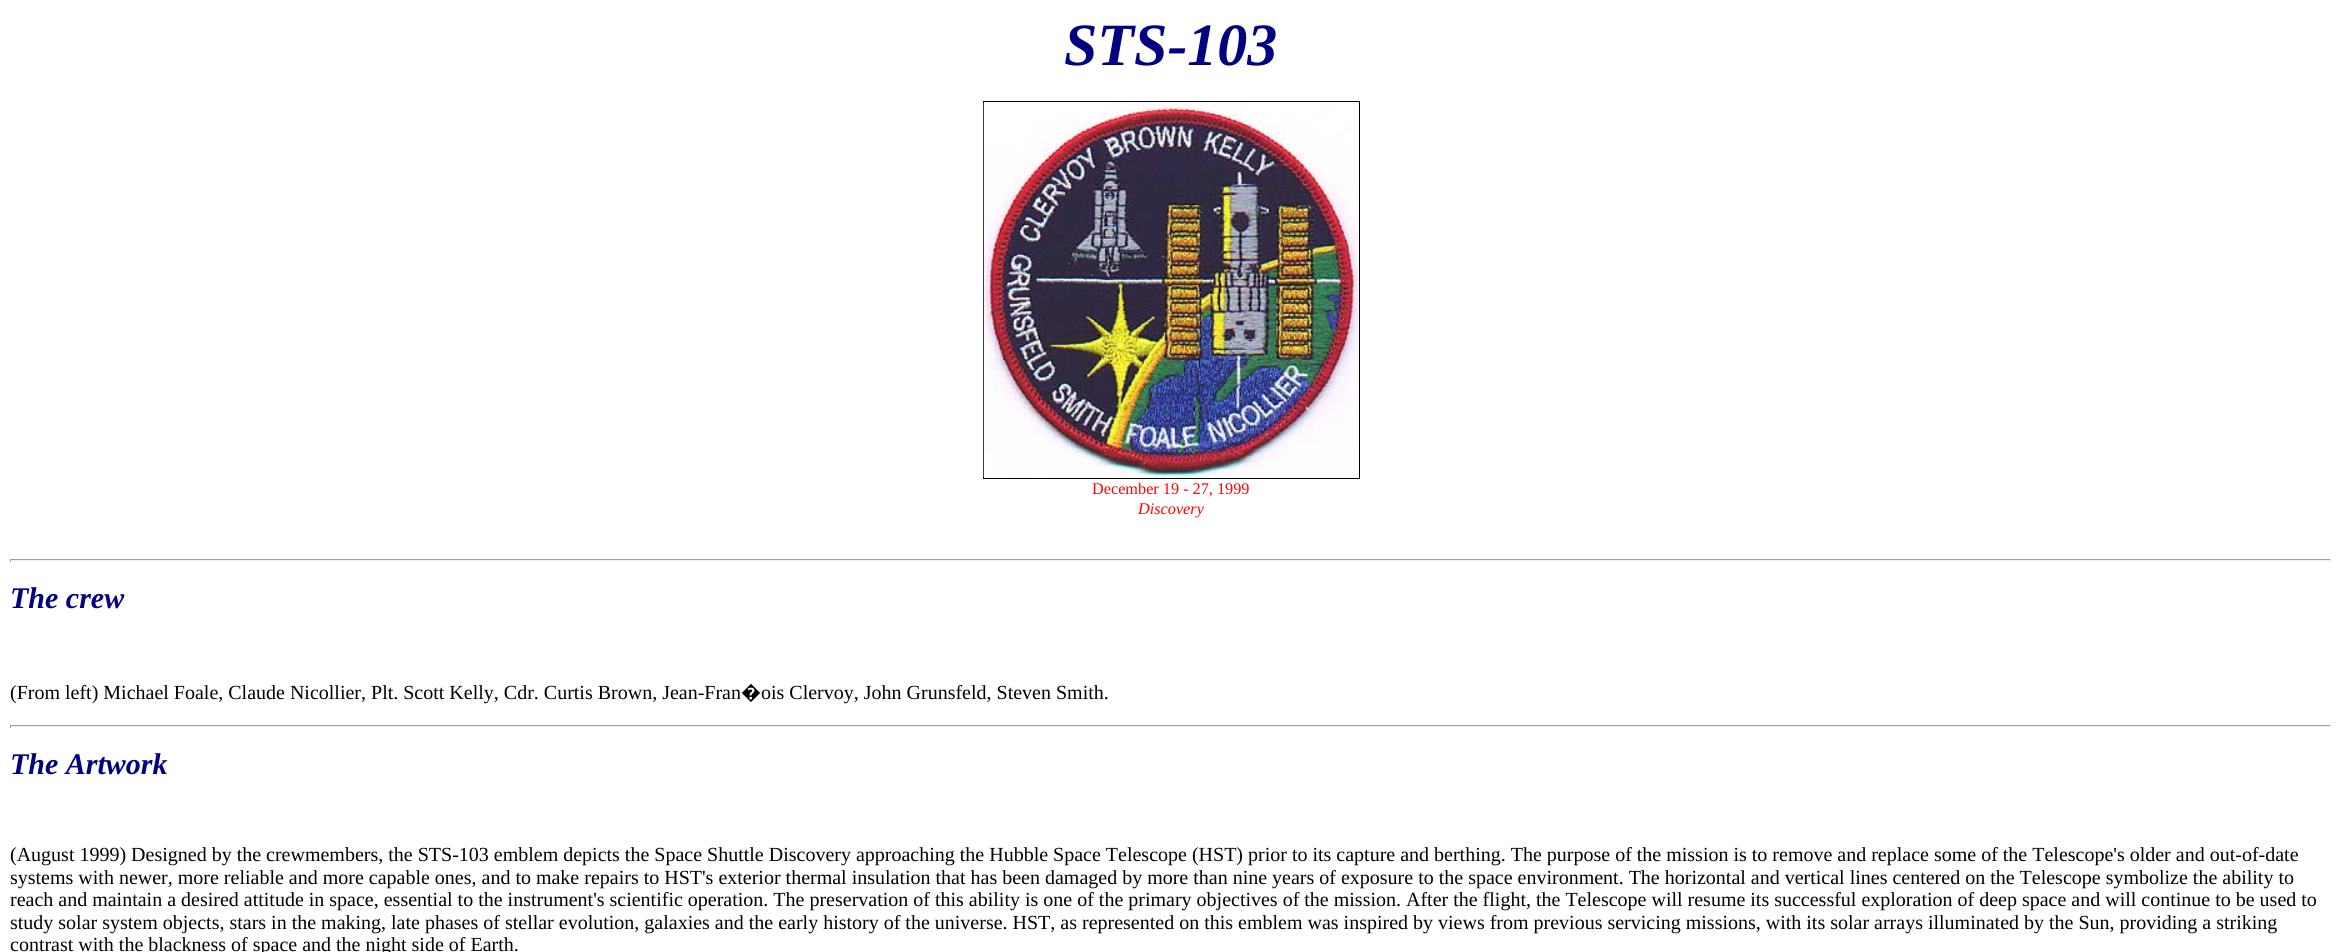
import math
import cairo

surface = cairo.ImageSurface(cairo.Format.RGB24, 2341, 952)
ctx = cairo.Context(surface)
options = cairo.FontOptions()
options.set_hint_metrics(cairo.HintMetrics.OFF)
options.set_hint_style(cairo.HintStyle.NONE)
ctx.set_font_options(options)
ctx.set_miter_limit(4)


def ink(r, g, b):
    ctx.set_source_rgb(r / 255, g / 255, b / 255)


def write(x, y, s, family, size, color, bold=False, italic=False):
    ctx.select_font_face(family, cairo.FontSlant.ITALIC if italic else cairo.FontSlant.NORMAL, cairo.FontWeight.BOLD if bold else cairo.FontWeight.NORMAL)
    ctx.set_font_size(size)
    ink(*color)
    ctx.move_to(x, y)
    ctx.show_text(s)


def block(x, y, w, h, *color):
    ink(*color)
    ctx.rectangle(x, y, w, h)
    ctx.fill()


def paste(path, x, y, w, h):
    ctx.save()
    ctx.set_source_surface(cairo.ImageSurface.create_from_png(path), x, y)
    ctx.rectangle(x, y, w, h)
    ctx.fill()
    ctx.restore()


s1 = dict(family="Liberation Serif", size=60, color=(0, 0, 128), bold=True, italic=True)
s2 = dict(family="Liberation Serif", size=16.25, color=(255, 0, 0))
s3 = dict(family="Liberation Serif", size=16.25, color=(255, 0, 0), italic=True)
s4 = dict(family="Liberation Serif", size=30, color=(0, 0, 128), bold=True, italic=True)
s5 = dict(family="Liberation Serif", size=20, color=(0, 0, 0))
s6 = dict(family="Noto Sans", size=20, color=(0, 0, 0))

ink(255, 255, 255)
ctx.paint()
write(1064, 65, "STS-103", **s1)
ctx.rectangle(983.5, 101.5, 376, 377)
ink(0, 0, 0)
ctx.set_line_width(1)
ctx.stroke()
paste("pic1.png", 983, 102, 376, 376)
write(1092, 494, "December 19 - 27, 1999", **s2)
write(1138, 514, "Discovery", **s3)
block(10, 559, 2321, 1, 159, 159, 159)
block(2330, 559, 1, 3, 238, 238, 238)
block(10, 560, 2321, 1, 238, 238, 238)
block(10, 559, 1, 3, 159, 159, 159)
write(10, 608, "The crew", **s4)
write(10, 699, "(From left) Michael Foale, Claude Nicollier, Plt. Scott Kelly, Cdr. Curtis Brown, Jean-Fran", **s5)
write(741, 699, "�", **s6)
write(761, 699, "ois Clervoy, John Grunsfeld, Steven Smith.", **s5)
block(10, 725, 2321, 1, 159, 159, 159)
block(2330, 725, 1, 3, 238, 238, 238)
block(10, 726, 2321, 1, 238, 238, 238)
block(10, 725, 1, 3, 159, 159, 159)
write(10, 774, "The Artwork", **s4)
write(10, 861, "(August 1999) Designed by the crewmembers, the STS-103 emblem depicts the Space Shuttle Discovery approaching the Hubble Space Telescope (HST) prior to its capture and berthing. The purpose of the mission is to remove and replace some of the Telescope's older and out-of-date", **s5)
write(10, 884, "systems with newer, more reliable and more capable ones, and to make repairs to HST's exterior thermal insulation that has been damaged by more than nine years of exposure to the space environment. The horizontal and vertical lines centered on the Telescope symbolize the ability to", **s5)
write(10, 906, "reach and maintain a desired attitude in space, essential to the instrument's scientific operation. The preservation of this ability is one of the primary objectives of the mission. After the flight, the Telescope will resume its successful exploration of deep space and will continue to be used to", **s5)
write(10, 929, "study solar system objects, stars in the making, late phases of stellar evolution, galaxies and the early history of the universe. HST, as represented on this emblem was inspired by views from previous servicing missions, with its solar arrays illuminated by the Sun, providing a striking", **s5)
write(10, 951, "contrast with the blackness of space and the night side of Earth.", **s5)
surface.write_to_png("screenshot.png")
